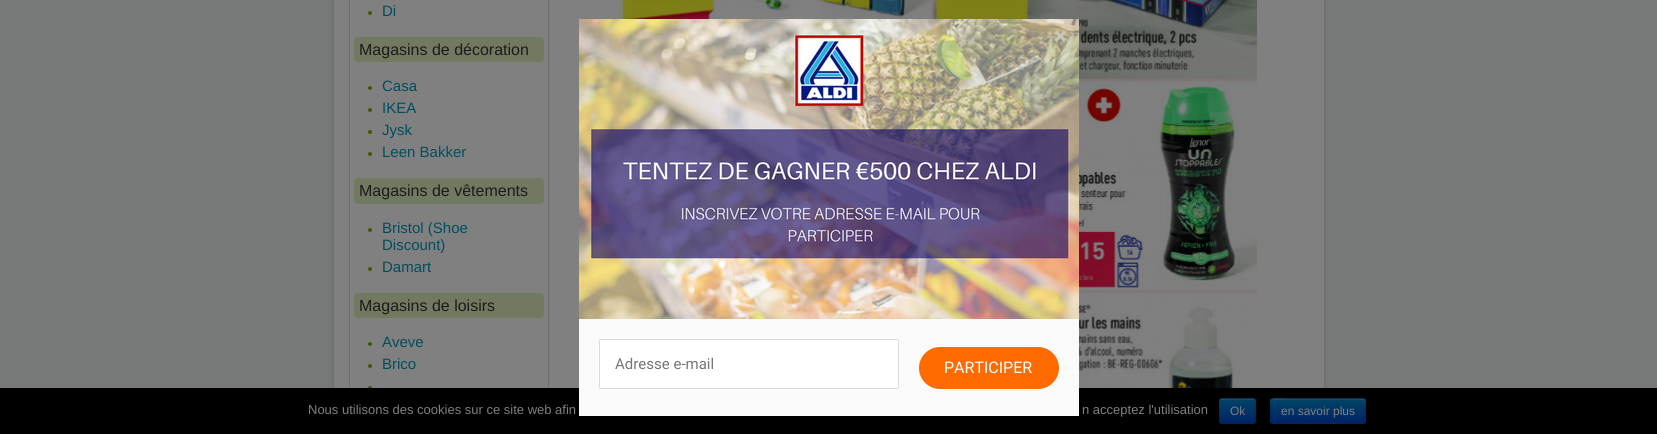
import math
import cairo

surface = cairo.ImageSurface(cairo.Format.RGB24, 1657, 434)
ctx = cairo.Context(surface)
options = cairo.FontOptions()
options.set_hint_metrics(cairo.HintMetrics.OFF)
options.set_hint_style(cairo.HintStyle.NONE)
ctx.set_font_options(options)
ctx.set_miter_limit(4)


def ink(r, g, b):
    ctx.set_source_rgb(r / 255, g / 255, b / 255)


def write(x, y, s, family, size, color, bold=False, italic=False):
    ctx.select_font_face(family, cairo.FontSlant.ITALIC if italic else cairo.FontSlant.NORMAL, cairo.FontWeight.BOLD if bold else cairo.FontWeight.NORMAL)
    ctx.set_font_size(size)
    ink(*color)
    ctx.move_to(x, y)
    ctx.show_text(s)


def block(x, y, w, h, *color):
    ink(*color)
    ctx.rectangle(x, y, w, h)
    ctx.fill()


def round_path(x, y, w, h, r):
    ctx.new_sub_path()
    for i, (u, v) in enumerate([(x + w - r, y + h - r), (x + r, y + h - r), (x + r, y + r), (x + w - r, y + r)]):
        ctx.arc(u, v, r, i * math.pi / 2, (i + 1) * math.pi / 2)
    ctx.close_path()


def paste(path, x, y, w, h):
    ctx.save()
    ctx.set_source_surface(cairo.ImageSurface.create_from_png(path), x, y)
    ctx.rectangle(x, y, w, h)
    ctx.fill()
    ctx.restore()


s1 = dict(family="Liberation Sans", size=15, color=(0, 77, 94))
s2 = dict(family="Liberation Sans", size=16, color=(25, 28, 29))
s3 = dict(family="Roboto", size=24, color=(202, 200, 186), bold=True)
s4 = dict(family="Roboto", size=15, color=(117, 117, 117))
s5 = dict(family="Roboto", size=16, color=(255, 255, 255))
s6 = dict(family="Liberation Sans", size=13, color=(128, 128, 128))
s7 = dict(family="Liberation Sans", size=12, color=(128, 128, 128))

ink(119, 121, 121)
ctx.paint()
paste("pic1.png", 331, 0, 996, 388)
ctx.rectangle(349.5, -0.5, 199, 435)
ink(108, 109, 110)
ctx.set_line_width(1)
ctx.stroke()
ink(62, 91, 0)
ctx.arc(370, 13, 2, 0, 2 * math.pi)
ctx.fill()
write(382, 16, "Di", **s1)
ink(113, 121, 96)
round_path(354, 37, 190, 25, 4)
ctx.fill()
write(359, 55, "Magasins de décoration", **s2)
ink(62, 91, 0)
ctx.new_path()
ctx.arc(370, 88, 2, 0, 2 * math.pi)
ctx.fill()
write(382, 91, "Casa", **s1)
ink(62, 91, 0)
ctx.new_path()
ctx.arc(370, 110, 2, 0, 2 * math.pi)
ctx.fill()
write(382, 113, "IKEA", **s1)
ink(62, 91, 0)
ctx.new_path()
ctx.arc(370, 132, 2, 0, 2 * math.pi)
ctx.fill()
write(382, 135, "Jysk", **s1)
ink(62, 91, 0)
ctx.new_path()
ctx.arc(370, 154, 2, 0, 2 * math.pi)
ctx.fill()
write(382, 157, "Leen Bakker", **s1)
ink(113, 121, 96)
round_path(354, 178, 190, 26, 4)
ctx.fill()
write(359, 196, "Magasins de vêtements", **s2)
ink(62, 91, 0)
ctx.new_path()
ctx.arc(370, 230, 2, 0, 2 * math.pi)
ctx.fill()
write(382, 233, "Bristol (Shoe", **s1)
write(382, 250, "Discount)", **s1)
ink(62, 91, 0)
ctx.new_path()
ctx.arc(370, 269, 2, 0, 2 * math.pi)
ctx.fill()
write(382, 272, "Damart", **s1)
ink(113, 121, 96)
round_path(354, 293, 190, 25, 4)
ctx.fill()
write(359, 311, "Magasins de loisirs", **s2)
ink(62, 91, 0)
ctx.new_path()
ctx.arc(370, 344, 2, 0, 2 * math.pi)
ctx.fill()
write(382, 347, "Aveve", **s1)
ink(62, 91, 0)
ctx.new_path()
ctx.arc(370, 366, 2, 0, 2 * math.pi)
ctx.fill()
write(382, 369, "Brico", **s1)
ink(62, 91, 0)
ctx.new_path()
ctx.arc(370, 388, 2, 0, 2 * math.pi)
ctx.fill()
paste("pic2.png", 610, 0, 647, 388)
block(0, 388, 1657, 46, 0, 0, 0)
block(579, 319, 500, 97, 250, 250, 250)
paste("pic3.png", 579, 19, 500, 300)
write(1054, 44, "×", **s3)
ink(255, 255, 255)
round_path(599.5, 339.5, 299, 49, 1.5)
ctx.fill_preserve()
ink(219, 219, 219)
ctx.stroke()
write(615, 369, "Adresse e-mail", **s4)
ink(255, 107, 0)
round_path(919, 347, 140, 42, 21)
ctx.fill()
write(944, 373, "PARTICIPER", **s5)
write(308, 414, "Nous utilisons des cookies sur ce site web afin", **s6)
write(1082, 414, "n acceptez l'utilisation", **s6)
ink(0, 55, 102)
round_path(1219, 398, 37, 26, 3)
ctx.fill()
ctx.save()
round_path(1219, 398, 37, 26, 3)
ctx.clip()
gradient = cairo.LinearGradient(1238, 399, 1238, 423)
gradient.add_color_stop_rgba(0, 0, 0.267, 0.4, 1)
gradient.add_color_stop_rgba(1, 0, 0.133, 0.4, 1)
ctx.set_source(gradient)
ctx.rectangle(1219, 399, 37, 24)
ctx.fill()
ctx.restore()
ctx.set_source_rgba(0.502, 0.502, 0.502, 0.2)
ctx.new_path()
ctx.move_to(1222, 400)
ctx.line_to(1253, 400)
ctx.curve_to(1254, 400, 1255, 401, 1255, 402)
ctx.curve_to(1255, 397.5, 1251.5, 399, 1248, 399)
ctx.line_to(1227, 399)
ctx.curve_to(1223.5, 399, 1220, 397.5, 1220, 402)
ctx.curve_to(1220, 401, 1221, 400, 1222, 400)
ctx.close_path()
ctx.fill()
ctx.new_path()
ctx.move_to(1255, 423)
ctx.curve_to(1254.5, 423, 1253.5, 423.5, 1253, 423.5)
ctx.line_to(1222, 423.5)
ctx.curve_to(1221.5, 423.5, 1220.5, 423, 1220, 423)
ctx.set_source_rgba(0, 0, 0, 0.25)
ctx.stroke()
ctx.new_path()
ctx.move_to(1220, 423)
ctx.curve_to(1220, 422.5, 1219.5, 421.5, 1219.5, 421)
ctx.line_to(1219.5, 401)
ctx.curve_to(1219.5, 400.5, 1220, 399.5, 1220, 399)
ctx.curve_to(1220.5, 399, 1221.5, 398.5, 1222, 398.5)
ctx.line_to(1253, 398.5)
ctx.curve_to(1253.5, 398.5, 1254.5, 399, 1255, 399)
ctx.curve_to(1255, 399.5, 1255.5, 400.5, 1255.5, 401)
ctx.line_to(1255.5, 421)
ctx.curve_to(1255.5, 421.5, 1255, 422.5, 1255, 423)
ctx.set_source_rgba(0, 0, 0, 0.1)
ctx.stroke()
write(1230, 415, "Ok", **s7)
ink(0, 55, 102)
round_path(1270, 398, 96, 26, 3)
ctx.fill()
ctx.save()
round_path(1270, 398, 96, 26, 3)
ctx.clip()
gradient = cairo.LinearGradient(1318, 399, 1318, 423)
gradient.add_color_stop_rgba(0, 0, 0.267, 0.4, 1)
gradient.add_color_stop_rgba(1, 0, 0.133, 0.4, 1)
ctx.set_source(gradient)
ctx.rectangle(1270, 399, 96, 24)
ctx.fill()
ctx.restore()
ctx.set_source_rgba(0.502, 0.502, 0.502, 0.2)
ctx.new_path()
ctx.move_to(1273, 400)
ctx.line_to(1363, 400)
ctx.curve_to(1364, 400, 1365, 401, 1365, 402)
ctx.curve_to(1365, 401, 1365, 399, 1363, 399)
ctx.line_to(1288, 399)
ctx.curve_to(1286, 399, 1271, 395, 1271, 402)
ctx.curve_to(1271, 401, 1272, 400, 1273, 400)
ctx.close_path()
ctx.fill()
ctx.new_path()
ctx.move_to(1365, 423)
ctx.line_to(1363, 423.5)
ctx.line_to(1348, 423.5)
ctx.curve_to(1340, 423.5, 1273.5, 424.5, 1271.5, 423)
ctx.line_to(1271, 423)
ctx.set_source_rgba(0, 0, 0, 0.25)
ctx.stroke()
ctx.new_path()
ctx.move_to(1271, 423)
ctx.curve_to(1269.5, 421, 1270.5, 416.5, 1270.5, 414.5)
ctx.curve_to(1270.5, 395, 1267, 398.5, 1288, 398.5)
ctx.line_to(1348, 398.5)
ctx.curve_to(1369, 398.5, 1365.5, 395, 1365.5, 414.5)
ctx.curve_to(1365.5, 416.5, 1366.5, 421, 1365, 423)
ctx.set_source_rgba(0, 0, 0, 0.1)
ctx.stroke()
write(1281, 415, "en savoir plus", **s7)
surface.write_to_png("screenshot.png")
